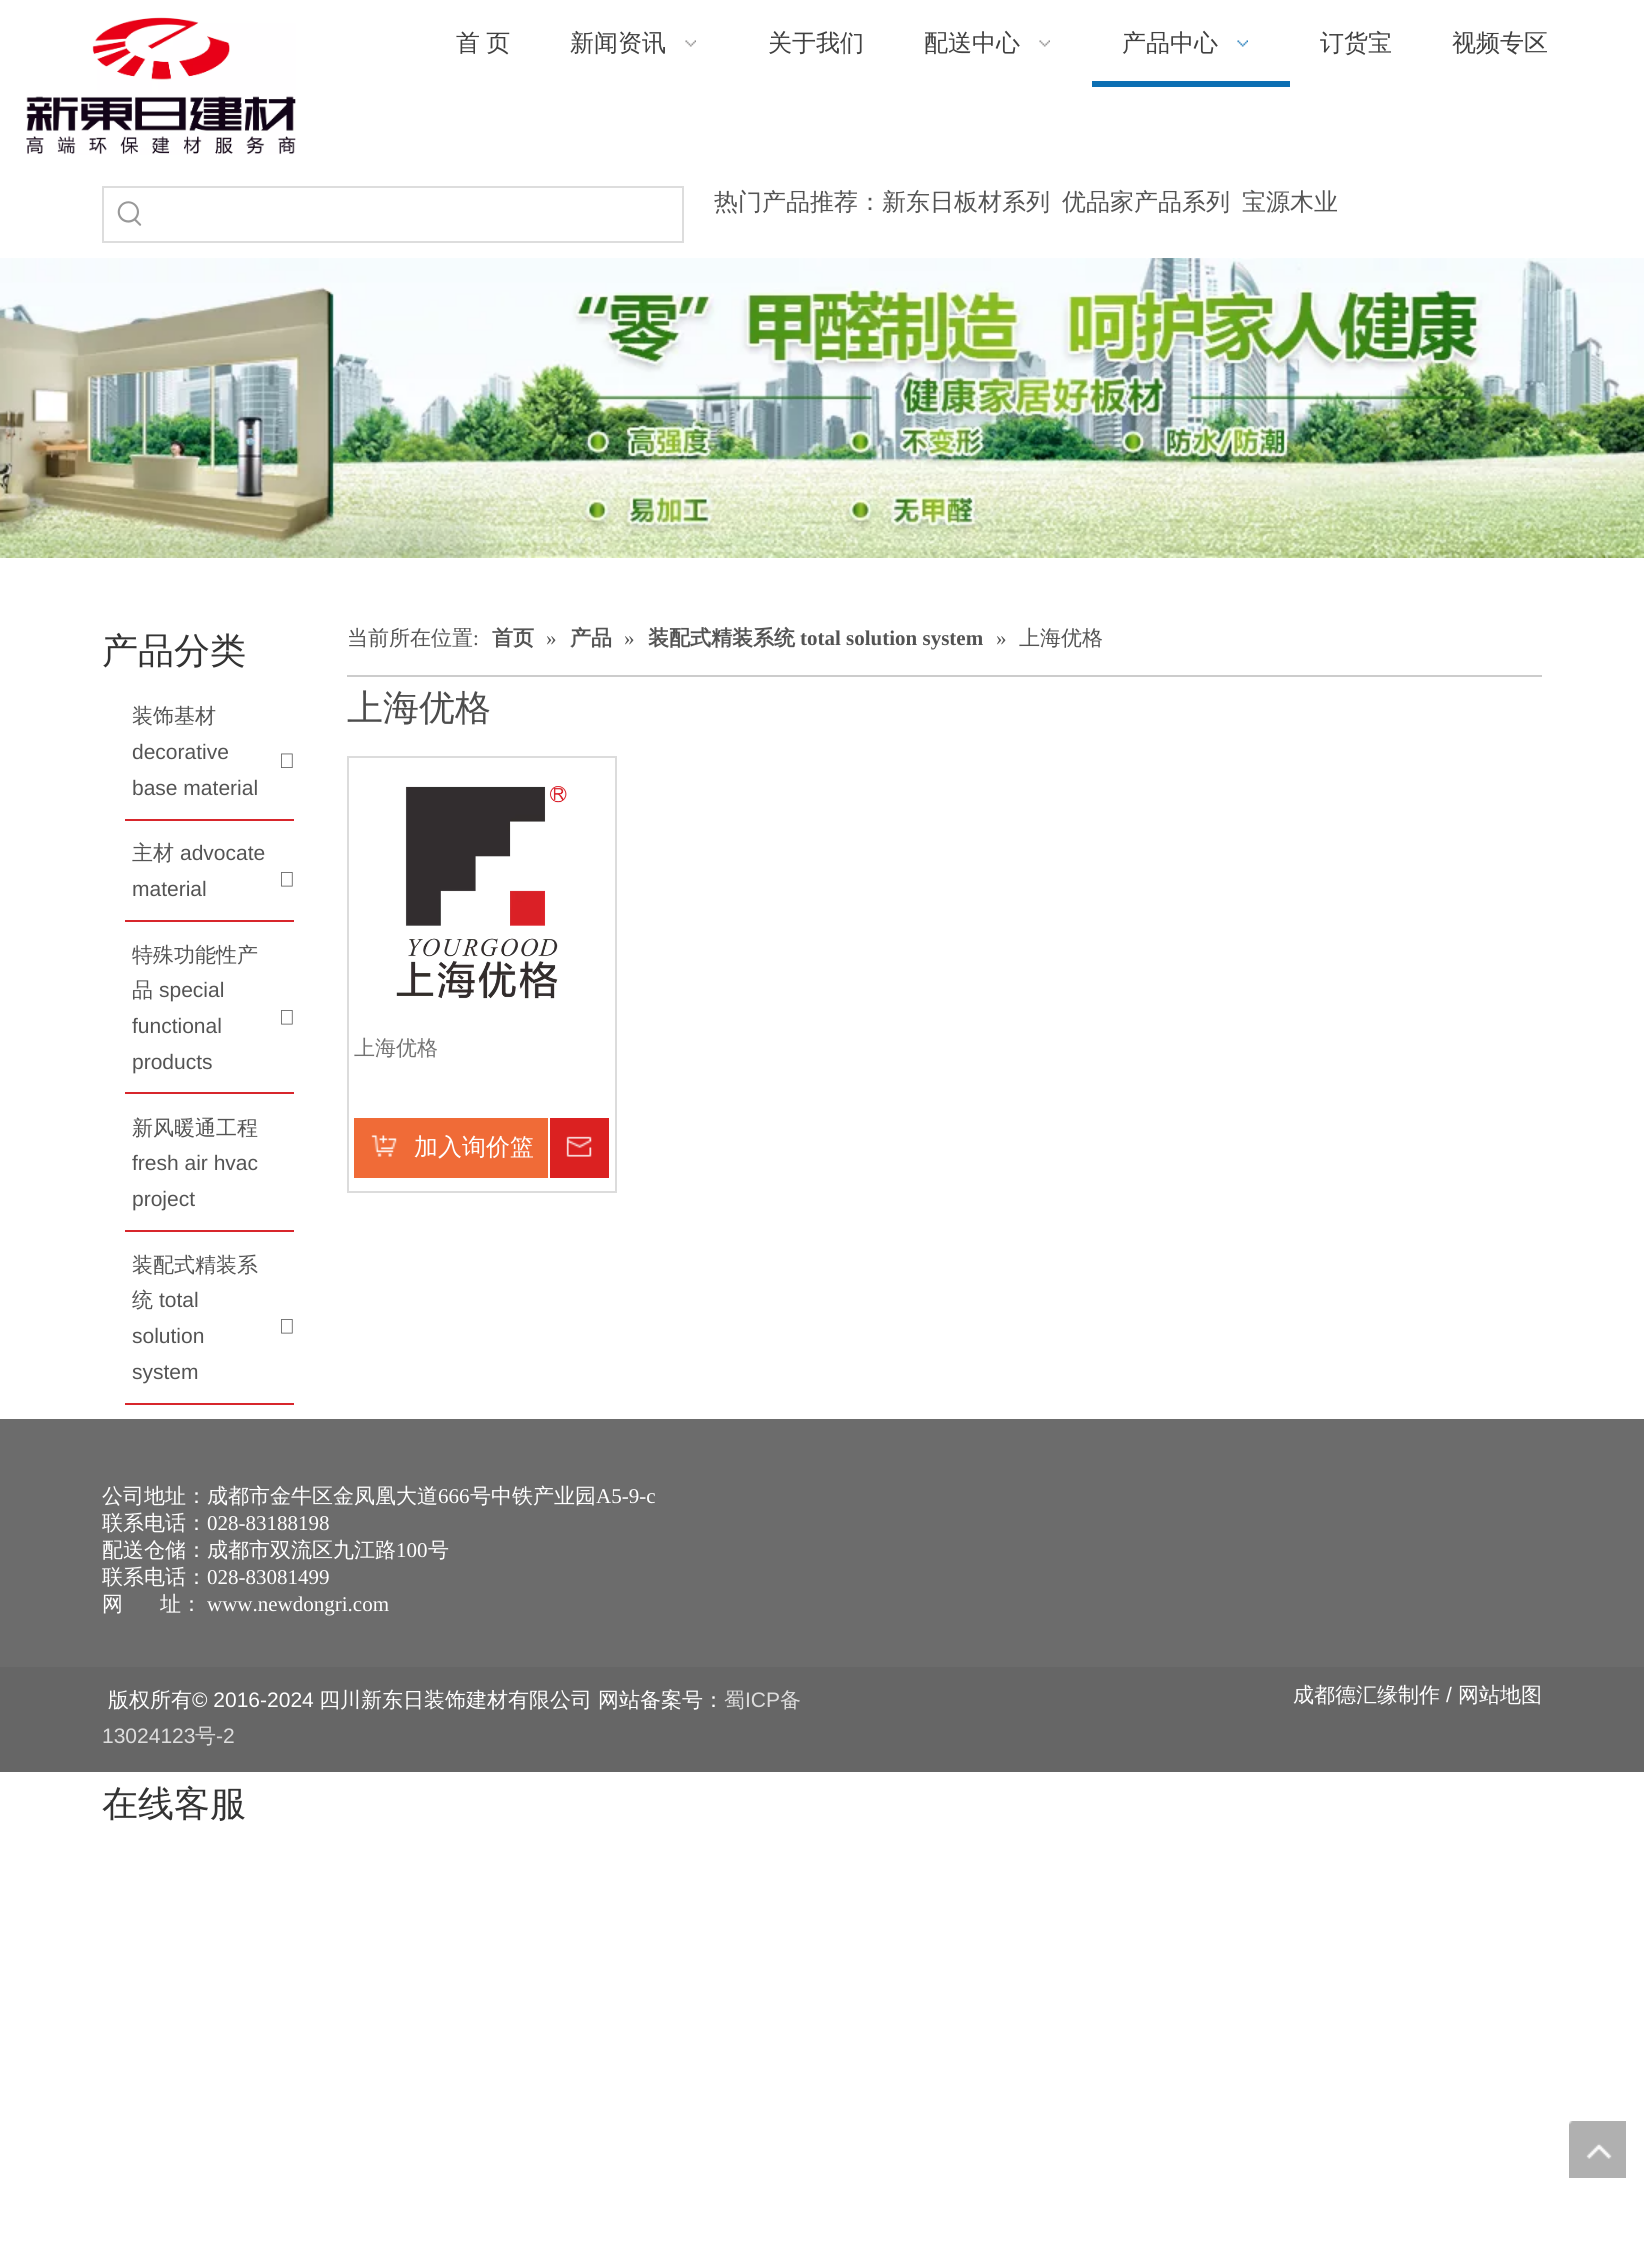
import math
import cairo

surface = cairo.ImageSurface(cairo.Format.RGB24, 1644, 2262)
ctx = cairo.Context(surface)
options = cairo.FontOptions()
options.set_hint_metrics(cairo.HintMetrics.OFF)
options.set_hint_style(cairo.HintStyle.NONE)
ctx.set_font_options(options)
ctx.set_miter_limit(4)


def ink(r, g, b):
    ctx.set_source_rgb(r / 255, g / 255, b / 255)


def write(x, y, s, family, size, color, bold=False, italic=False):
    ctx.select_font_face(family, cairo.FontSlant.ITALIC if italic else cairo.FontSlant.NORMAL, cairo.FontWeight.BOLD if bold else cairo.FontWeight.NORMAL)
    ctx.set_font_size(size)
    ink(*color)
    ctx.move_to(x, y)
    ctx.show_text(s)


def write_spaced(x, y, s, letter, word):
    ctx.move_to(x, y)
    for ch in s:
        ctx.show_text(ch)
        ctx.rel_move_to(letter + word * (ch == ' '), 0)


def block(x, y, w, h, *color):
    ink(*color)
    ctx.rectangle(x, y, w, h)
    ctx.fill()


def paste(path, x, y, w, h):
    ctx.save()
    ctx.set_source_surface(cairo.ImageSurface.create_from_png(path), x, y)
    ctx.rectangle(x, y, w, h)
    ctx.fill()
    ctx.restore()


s1 = dict(family="WenQuanYi Zen Hei Medium", size=24, color=(64, 64, 64))
s2 = dict(family="WenQuanYi Zen Hei Medium", size=24, color=(84, 84, 84))
s3 = dict(family="WenQuanYi Zen Hei Medium", size=36, color=(51, 51, 51))
s4 = dict(family="WenQuanYi Zen Hei Medium", size=21, color=(84, 84, 84))
s5 = dict(family="Liberation Sans", size=21, color=(84, 84, 84))
s6 = dict(family="Liberation Serif", size=21, color=(84, 84, 84))
s7 = dict(family="WenQuanYi Zen Hei", size=21, color=(84, 84, 84), bold=True)
s8 = dict(family="Liberation Serif", size=21, color=(84, 84, 84), bold=True)
s9 = dict(family="WenQuanYi Zen Hei Medium", size=36, color=(76, 76, 76))
s10 = dict(family="WenQuanYi Zen Hei Medium", size=21, color=(115, 115, 115))
s11 = dict(family="WenQuanYi Zen Hei Medium", size=24, color=(255, 255, 255))
s12 = dict(family="WenQuanYi Zen Hei Medium", size=21, color=(255, 255, 255))
s13 = dict(family="Liberation Serif", size=21, color=(255, 255, 255))
s14 = dict(family="Liberation Sans", size=21, color=(255, 255, 255))
s15 = dict(family="WenQuanYi Zen Hei Medium", size=21, color=(221, 221, 221))
s16 = dict(family="Liberation Sans", size=21, color=(221, 221, 221))

ink(255, 255, 255)
ctx.paint()
paste("pic1.png", 26, 17, 270, 138)
ctx.select_font_face("WenQuanYi Zen Hei Medium")
ctx.set_font_size(24)
ink(64, 64, 64)
write_spaced(456, 51, "首 页", 0, -1)
write(570, 51, "新闻资讯", **s1)
paste("pic2.png", 685, 40, 11, 7)
write(768, 51, "关于我们", **s1)
write(924, 51, "配送中心", **s1)
paste("pic3.png", 1039, 40, 11, 7)
block(1092, 81, 198, 6, 12, 111, 179)
write(1122, 51, "产品中心", **s1)
paste("pic4.png", 1237, 40, 11, 7)
write(1320, 51, "订货宝", **s1)
write(1452, 51, "视频专区", **s1)
ctx.rectangle(103, 187, 580, 55)
ink(221, 221, 221)
ctx.stroke()
paste("pic5.png", 117, 201, 25, 25)
write(714, 210, "热门产品推荐：新东日板材系列", **s2)
write(1062, 210, "优品家产品系列", **s2)
write(1242, 210, "宝源木业", **s2)
paste("pic6.png", 0, 258, 1644, 300)
write(102, 663, "产品分类", **s3)
write(132, 723, "装饰基材", **s4)
write(132, 759, "decorative", **s5)
paste("pic7.png", 281, 753, 12, 15)
write(132, 795, "base material", **s5)
block(125, 819, 169, 2, 216, 38, 44)
write(132, 860, "主材", **s4)
write(180, 860, "advocate", **s5)
write(132, 896, "material", **s5)
paste("pic8.png", 281, 872, 12, 15)
block(125, 920, 169, 2, 216, 38, 44)
write(132, 962, "特殊功能性产", **s4)
write(132, 997, "品", **s4)
write(159, 997, "special", **s5)
write(132, 1033, "functional", **s5)
paste("pic8.png", 281, 1010, 12, 15)
write(132, 1069, "products", **s5)
block(125, 1092, 169, 2, 216, 38, 44)
write(132, 1135, "新风暖通工程", **s4)
write(132, 1170, "fresh air hvac", **s5)
write(132, 1206, "project", **s5)
block(125, 1230, 169, 2, 216, 38, 44)
write(132, 1272, "装配式精装系", **s4)
write(132, 1307, "统", **s4)
write(159, 1307, "total", **s5)
write(132, 1343, "solution", **s5)
paste("pic8.png", 281, 1319, 12, 15)
write(132, 1379, "system", **s5)
block(125, 1403, 169, 2, 216, 38, 44)
block(347, 675, 1195, 2, 204, 204, 204)
write(347, 645, "当前所在位置", **s4)
write(473, 645, ":", **s6)
write(492, 645, "首页", **s7)
write(546, 645, "»", **s6)
write(570, 645, "产品", **s7)
write(624, 645, "»", **s6)
write(648, 645, "装配式精装系统", **s7)
write(800, 645, "total solution system", **s8)
write(996, 645, "»", **s6)
write(1019, 645, "上海优格", **s4)
write(347, 720, "上海优格", **s9)
ctx.rectangle(348, 757, 268, 435)
ink(220, 220, 220)
ctx.stroke()
paste("pic9.png", 396, 786, 171, 213)
write(354, 1055, "上海优格", **s10)
block(354, 1118, 194, 60, 240, 107, 55)
paste("pic10.png", 371, 1135, 26, 22)
write(414, 1155, "加入询价篮", **s11)
block(550, 1118, 59, 60, 219, 33, 33)
paste("pic11.png", 566, 1136, 26, 21)
block(0, 1419, 1644, 248, 108, 108, 108)
write(102, 1503, "公司地址：成都市金牛区金凤凰大道", **s12)
write(438, 1503, "666", **s13)
write(470, 1503, "号中铁产业园", **s12)
write(596, 1503, "A5-9-c", **s13)
write(102, 1530, "联系电话：", **s12)
write(207, 1530, "028-83188198", **s13)
write(102, 1557, "配送仓储：成都市双流区九江路", **s12)
write(396, 1557, "100", **s13)
write(428, 1557, "号", **s12)
write(102, 1584, "联系电话：", **s12)
write(207, 1584, "028-83081499", **s13)
write(102, 1611, "网", **s12)
write(160, 1611, "址：", **s12)
write(207, 1611, "www.newdongri.com", **s13)
block(0, 1667, 1644, 105, 102, 102, 102)
write(108, 1707, "版权所有", **s12)
write(192, 1707, "© 2016-2024", **s14)
write(319, 1707, "四川新东日装饰建材有限公司", **s12)
write(598, 1707, "网站备案号：", **s12)
write(724, 1707, "蜀", **s15)
write(745, 1707, "ICP", **s16)
write(780, 1707, "备", **s15)
write(102, 1743, "13024123", **s16)
write(195, 1743, "号", **s15)
write(216, 1743, "-2", **s16)
write(1293, 1702, "成都德汇缘制作", **s12)
write(1446, 1702, "/", **s14)
write(1458, 1702, "网站地图", **s12)
write(102, 1816, "在线客服", **s3)
paste("pic12.png", 1569, 2121, 57, 57)
surface.write_to_png("screenshot.png")
